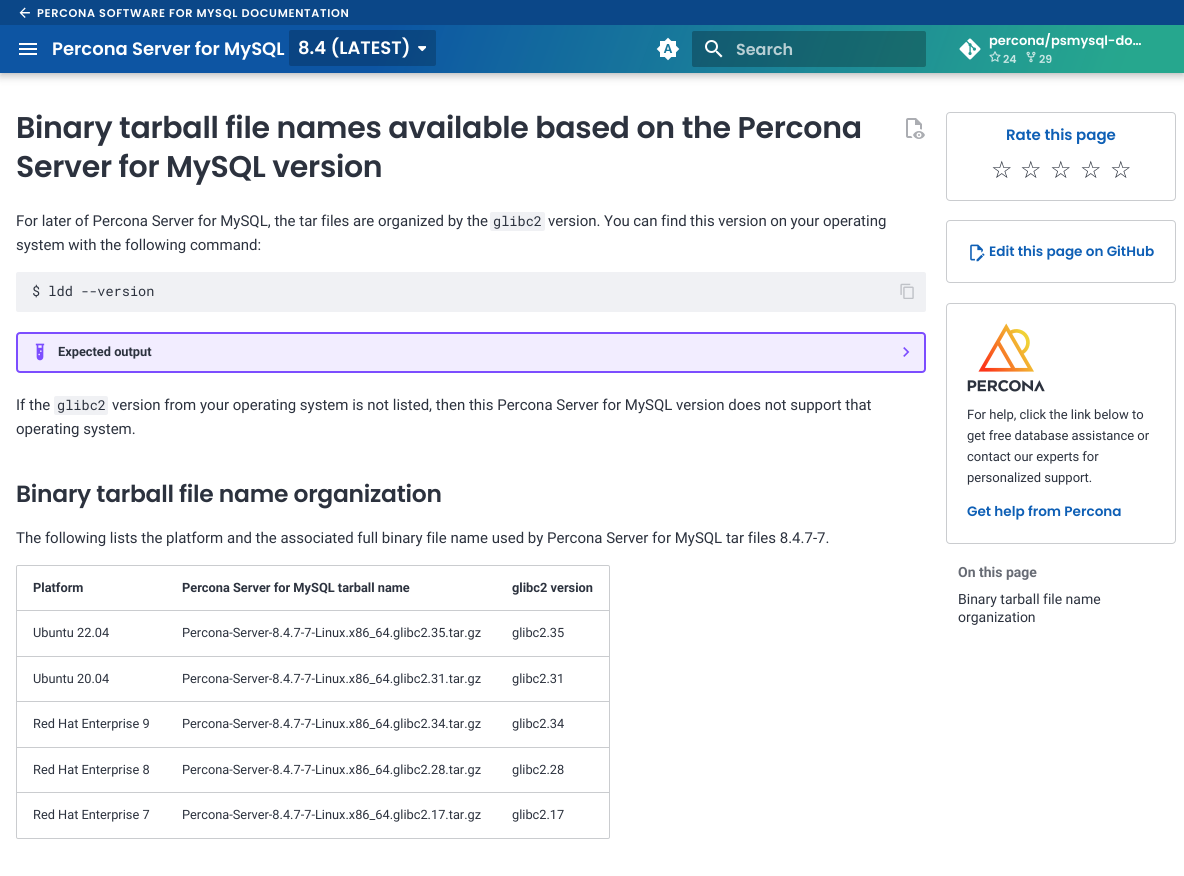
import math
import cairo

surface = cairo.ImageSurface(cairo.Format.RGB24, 1184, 876)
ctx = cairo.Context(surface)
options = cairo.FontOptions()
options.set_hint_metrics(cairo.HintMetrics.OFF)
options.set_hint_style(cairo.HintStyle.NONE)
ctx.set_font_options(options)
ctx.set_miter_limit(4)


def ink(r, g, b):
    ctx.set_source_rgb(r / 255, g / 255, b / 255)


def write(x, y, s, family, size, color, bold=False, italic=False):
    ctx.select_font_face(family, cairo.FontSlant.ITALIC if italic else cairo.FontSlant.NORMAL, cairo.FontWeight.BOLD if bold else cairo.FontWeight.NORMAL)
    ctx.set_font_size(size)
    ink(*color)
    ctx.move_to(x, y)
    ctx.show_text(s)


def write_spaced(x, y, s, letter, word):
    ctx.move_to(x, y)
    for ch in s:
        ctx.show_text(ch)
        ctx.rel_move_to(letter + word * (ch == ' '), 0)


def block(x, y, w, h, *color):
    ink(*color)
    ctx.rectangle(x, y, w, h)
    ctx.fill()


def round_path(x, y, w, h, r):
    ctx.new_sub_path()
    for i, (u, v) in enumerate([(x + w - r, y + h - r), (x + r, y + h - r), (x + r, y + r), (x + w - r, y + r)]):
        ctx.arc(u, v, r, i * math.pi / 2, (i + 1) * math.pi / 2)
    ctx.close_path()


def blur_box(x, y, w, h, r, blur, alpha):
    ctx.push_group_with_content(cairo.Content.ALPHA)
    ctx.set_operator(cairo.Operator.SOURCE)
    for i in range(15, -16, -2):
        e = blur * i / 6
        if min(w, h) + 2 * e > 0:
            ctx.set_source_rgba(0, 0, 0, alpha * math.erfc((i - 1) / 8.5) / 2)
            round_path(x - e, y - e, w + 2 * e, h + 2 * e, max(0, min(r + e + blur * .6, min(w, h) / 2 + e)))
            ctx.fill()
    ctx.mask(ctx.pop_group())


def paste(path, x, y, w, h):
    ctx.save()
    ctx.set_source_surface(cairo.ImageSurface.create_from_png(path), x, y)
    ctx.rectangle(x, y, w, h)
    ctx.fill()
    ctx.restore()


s1 = dict(family="Poppins SemiBold", size=18, color=(255, 255, 255))
s2 = dict(family="Poppins SemiBold", size=16, color=(184, 207, 212))
s3 = dict(family="Poppins SemiBold", size=13, color=(255, 255, 255))
s4 = dict(family="Poppins SemiBold", size=11, color=(200, 230, 228))
s5 = dict(family="Roboto", size=15, color=(44, 50, 62))
s6 = dict(family="Roboto Mono", size=13.6, color=(44, 50, 62))
s7 = dict(family="Roboto", size=12.8, color=(44, 50, 62), bold=True)
s8 = dict(family="Roboto", size=12.8, color=(44, 50, 62))
s9 = dict(family="Poppins SemiBold", size=15, color=(14, 95, 181))
s10 = dict(family="DejaVu Sans", size=24, color=(44, 50, 62))
s11 = dict(family="Poppins SemiBold", size=13.6, color=(14, 95, 181))
s12 = dict(family="Roboto", size=13, color=(44, 50, 62))
s13 = dict(family="Roboto", size=14, color=(103, 107, 116), bold=True)
s14 = dict(family="Roboto", size=14, color=(44, 50, 62))

ink(255, 255, 255)
ctx.paint()
ink(0, 0, 0)
blur_box(0, 4, 1184, 73, 0, 4, 0.2)
blur_box(0, 0, 1184, 73, 0, 2, 0.1)
gradient = cairo.LinearGradient(58, -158, 1126, 231)
gradient.add_color_stop_rgba(0.33, 0.055, 0.373, 0.71, 1)
gradient.add_color_stop_rgba(0.95, 0.188, 0.82, 0.698, 1)
ctx.set_source(gradient)
ctx.rectangle(0, 25, 1184, 48)
ctx.fill()
gradient = cairo.LinearGradient(58, -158, 1126, 231)
gradient.add_color_stop_rgba(0.33, 0, 0, 0, 0.1)
gradient.add_color_stop_rgba(0.95, 0, 0, 0, 0.2)
ctx.set_source(gradient)
ctx.rectangle(0, 25, 1184, 48)
ctx.fill()
block(0, 0, 1184, 25, 11, 71, 136)
paste("pic1.png", 19, 7, 11, 11)
ctx.select_font_face("Poppins SemiBold")
ctx.set_font_size(11.25)
ink(255, 255, 255)
write_spaced(37, 17, "PERCONA SOFTWARE FOR MYSQL DOCUMENTATION", 0.7, 0)
paste("pic2.png", 19, 43, 18, 12)
write(52, 55, "Percona Server for MySQL", **s1)
ctx.set_source_rgba(0, 0, 0, 0.2)
round_path(289, 30, 147, 36, 2)
ctx.fill()
write(298, 54, "8.4 (LATEST)", **s1)
paste("pic3.png", 418, 46, 8, 6)
paste("pic4.png", 656, 37, 24, 24)
ctx.set_source_rgba(0, 0, 0, 0.26)
round_path(692, 31, 234, 36, 2)
ctx.fill()
paste("pic5.png", 705, 40, 18, 18)
write(736, 55, "Search", **s2)
paste("pic6.png", 959, 38, 22, 22)
ctx.save()
ctx.rectangle(949, 33, 198, 33)
ctx.clip()
write(989, 45, "percona/psmysql-do…", **s3)
ctx.restore()
paste("pic7.png", 989, 51, 12, 11)
write(1003, 63, "24", **s4)
paste("pic8.png", 1026, 51, 10, 12)
write(1039, 63, "29", **s4)
ctx.set_font_size(30)
ink(44, 50, 62)
write_spaced(16, 138, "Binary tarball file names available based on the Percona", -0.3, 0)
write_spaced(16, 177, "Server for MySQL version", -0.3, 0)
paste("pic9.png", 906, 118, 19, 21)
write(16, 226, "For later of Percona Server for MySQL, the tar files are organized by the", **s5)
ink(240, 241, 244)
round_path(490, 212, 55, 19, 2)
ctx.fill()
write(493, 226, "glibc2", **s6)
ctx.select_font_face("Roboto")
ctx.set_font_size(15)
write_spaced(548, 226, "version. You can find this version on your operating", 0, -0.25)
write(16, 250, "system with the following command:", **s5)
ink(240, 241, 244)
round_path(16, 272, 910, 40, 2)
ctx.fill()
write(32, 296, "$ ldd --version", **s6)
paste("pic10.png", 900, 283, 14, 16)
round_path(17, 333, 908, 39, 3)
ink(124, 77, 255)
ctx.stroke()
ctx.set_source_rgba(0.486, 0.302, 1, 0.1)
round_path(18, 334, 906, 37, 2)
ctx.fill()
paste("pic11.png", 35, 343, 10, 18)
write(58, 356, "Expected output", **s7)
paste("pic12.png", 903, 347, 7, 10)
write(16, 410, "If the", **s5)
ink(240, 241, 244)
round_path(54, 396, 54, 19, 2)
ctx.fill()
write(57, 410, "glibc2", **s6)
write(112, 410, "version from your operating system is not listed, then this Percona Server for MySQL version does not support that", **s5)
write(16, 434, "operating system.", **s5)
ctx.select_font_face("Poppins SemiBold")
ctx.set_font_size(23.4)
write_spaced(16, 502, "Binary tarball file name organization", -0.25, 0)
write(16, 543, "The following lists the platform and the associated full binary file name used by Percona Server for MySQL tar files 8.4.7-7.", **s5)
round_path(16.5, 565.5, 593, 273, 1.5)
ink(202, 204, 207)
ctx.set_line_width(1)
ctx.stroke()
write(33, 592, "Platform", **s7)
write(182, 592, "Percona Server for MySQL tarball name", **s7)
write(512, 592, "glibc2 version", **s7)
block(17, 610, 592, 1, 202, 204, 207)
write(33, 637, "Ubuntu 22.04", **s8)
write(182, 637, "Percona-Server-8.4.7-7-Linux.x86_64.glibc2.35.tar.gz", **s8)
write(512, 637, "glibc2.35", **s8)
block(17, 656, 592, 1, 202, 204, 207)
write(33, 683, "Ubuntu 20.04", **s8)
write(182, 683, "Percona-Server-8.4.7-7-Linux.x86_64.glibc2.31.tar.gz", **s8)
write(512, 683, "glibc2.31", **s8)
block(17, 701, 592, 1, 202, 204, 207)
write(33, 728, "Red Hat Enterprise 9", **s8)
write(182, 728, "Percona-Server-8.4.7-7-Linux.x86_64.glibc2.34.tar.gz", **s8)
write(512, 728, "glibc2.34", **s8)
block(17, 747, 592, 1, 202, 204, 207)
write(33, 774, "Red Hat Enterprise 8", **s8)
write(182, 774, "Percona-Server-8.4.7-7-Linux.x86_64.glibc2.28.tar.gz", **s8)
write(512, 774, "glibc2.28", **s8)
block(17, 792, 592, 1, 202, 204, 207)
write(33, 819, "Red Hat Enterprise 7", **s8)
write(182, 819, "Percona-Server-8.4.7-7-Linux.x86_64.glibc2.17.tar.gz", **s8)
write(512, 819, "glibc2.17", **s8)
round_path(946.5, 112.5, 229, 88, 3.5)
ink(202, 204, 207)
ctx.stroke()
write(1006, 140, "Rate this page", **s9)
write(991, 178, "☆", **s10)
write(1020, 178, "☆", **s10)
write(1050, 178, "☆", **s10)
write(1080, 178, "☆", **s10)
write(1110, 178, "☆", **s10)
round_path(946.5, 220.5, 229, 62, 3.5)
ink(202, 204, 207)
ctx.stroke()
paste("pic13.png", 970, 244, 15, 18)
write(989, 256, "Edit this page on GitHub", **s11)
round_path(946.5, 303.5, 229, 240, 3.5)
ink(202, 204, 207)
ctx.stroke()
paste("pic14.png", 967, 323, 78, 69)
write(967, 419, "For help, click the link below to", **s12)
write(967, 440, "get free database assistance or", **s12)
write(967, 461, "contact our experts for", **s12)
write(967, 482, "personalized support.", **s12)
write(967, 516, "Get help from Percona", **s11)
ctx.save()
ctx.rectangle(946, 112, 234, 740)
ctx.clip()
ctx.set_fill_rule(cairo.FillRule.EVEN_ODD)
ctx.new_path()
ctx.move_to(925, 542)
ctx.line_to(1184, 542)
ctx.line_to(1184, 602)
ctx.line_to(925, 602)
ctx.close_path()
ctx.move_to(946, 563)
ctx.line_to(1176, 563)
ctx.line_to(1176, 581)
ctx.line_to(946, 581)
ctx.close_path()
ctx.clip()
ink(255, 255, 255)
blur_box(938, 555, 246, 34, 0, 4, 1)
ctx.restore()
write(958, 577, "On this page", **s13)
write(958, 604, "Binary tarball file name", **s14)
write(958, 622, "organization", **s14)
surface.write_to_png("screenshot.png")
